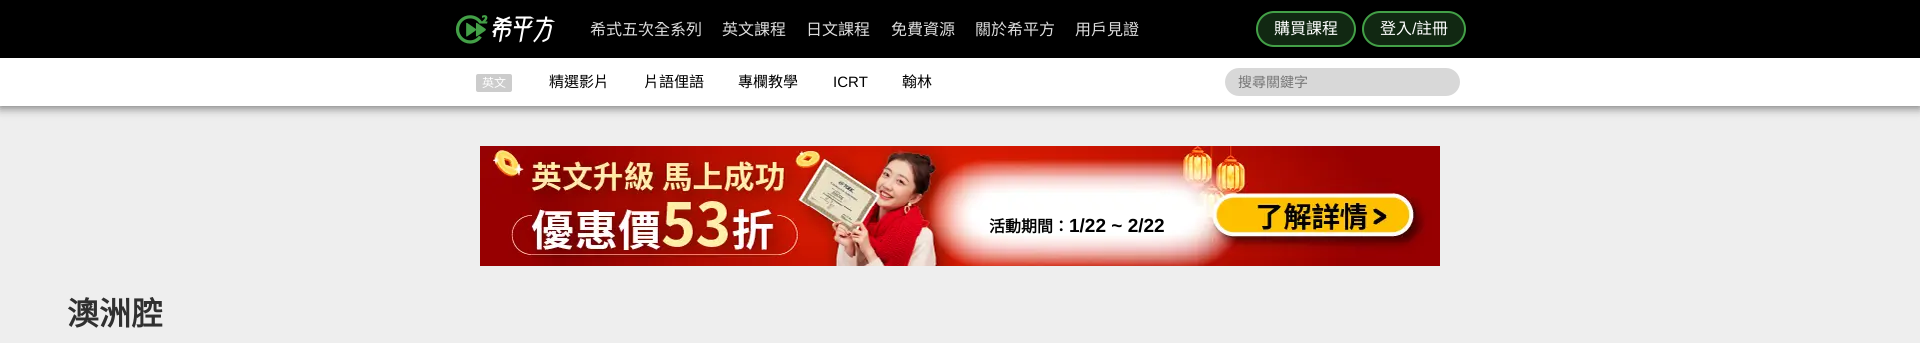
import math
import cairo

surface = cairo.ImageSurface(cairo.Format.RGB24, 1920, 343)
ctx = cairo.Context(surface)
options = cairo.FontOptions()
options.set_hint_metrics(cairo.HintMetrics.OFF)
options.set_hint_style(cairo.HintStyle.NONE)
ctx.set_font_options(options)
ctx.set_miter_limit(4)


def ink(r, g, b):
    ctx.set_source_rgb(r / 255, g / 255, b / 255)


def write(x, y, s, family, size, color, bold=False, italic=False):
    ctx.select_font_face(family, cairo.FontSlant.ITALIC if italic else cairo.FontSlant.NORMAL, cairo.FontWeight.BOLD if bold else cairo.FontWeight.NORMAL)
    ctx.set_font_size(size)
    ink(*color)
    ctx.move_to(x, y)
    ctx.show_text(s)


def block(x, y, w, h, *color):
    ink(*color)
    ctx.rectangle(x, y, w, h)
    ctx.fill()


def round_path(x, y, w, h, r):
    ctx.new_sub_path()
    for i, (u, v) in enumerate([(x + w - r, y + h - r), (x + r, y + h - r), (x + r, y + r), (x + w - r, y + r)]):
        ctx.arc(u, v, r, i * math.pi / 2, (i + 1) * math.pi / 2)
    ctx.close_path()


def blur_box(x, y, w, h, r, blur, alpha):
    ctx.push_group_with_content(cairo.Content.ALPHA)
    ctx.set_operator(cairo.Operator.SOURCE)
    for i in range(15, -16, -2):
        e = blur * i / 6
        if min(w, h) + 2 * e > 0:
            ctx.set_source_rgba(0, 0, 0, alpha * math.erfc((i - 1) / 8.5) / 2)
            round_path(x - e, y - e, w + 2 * e, h + 2 * e, max(0, min(r + e + blur * .6, min(w, h) / 2 + e)))
            ctx.fill()
    ctx.mask(ctx.pop_group())


def paste(path, x, y, w, h):
    ctx.save()
    ctx.set_source_surface(cairo.ImageSurface.create_from_png(path), x, y)
    ctx.rectangle(x, y, w, h)
    ctx.fill()
    ctx.restore()


s1 = dict(family="Noto Sans CJK TC", size=16, color=(221, 221, 221))
s2 = dict(family="Noto Sans CJK TC", size=16, color=(255, 255, 255))
s3 = dict(family="Liberation Sans", size=16, color=(255, 255, 255))
s4 = dict(family="Noto Sans CJK TC", size=12, color=(255, 255, 255))
s5 = dict(family="Noto Sans CJK TC", size=15, color=(0, 0, 0))
s6 = dict(family="Liberation Sans", size=15, color=(0, 0, 0))
s7 = dict(family="Noto Sans CJK TC", size=14, color=(117, 117, 117))
s8 = dict(family="Noto Sans CJK TC", size=16, color=(0, 0, 0), bold=True)
s9 = dict(family="Liberation Sans", size=19, color=(0, 0, 0), bold=True)
s10 = dict(family="Noto Sans CJK TC", size=32, color=(48, 48, 48), bold=True)

ink(255, 255, 255)
ctx.paint()
block(0, 0, 1920, 58, 0, 0, 0)
paste("pic1.png", 455, 15, 100, 29)
write(590, 35, "希式五次全系列", **s1)
write(722, 35, "英文課程", **s1)
write(806, 35, "日文課程", **s1)
write(891, 35, "免費資源", **s1)
write(975, 35, "關於希平方", **s1)
write(1075, 35, "用戶見證", **s1)
ink(17, 40, 18)
round_path(1257, 12, 98, 34, 17)
ctx.fill_preserve()
ink(67, 160, 71)
ctx.stroke()
write(1274, 34, "購買課程", **s2)
ink(17, 40, 18)
round_path(1363, 12, 102, 34, 17)
ctx.fill_preserve()
ink(67, 160, 71)
ctx.stroke()
write(1380, 34, "登入", **s2)
write(1412, 34, "/", **s3)
write(1416, 34, "註冊", **s2)
block(0, 106, 1920, 237, 238, 238, 238)
ctx.save()
ctx.set_fill_rule(cairo.FillRule.EVEN_ODD)
ctx.new_path()
ctx.move_to(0, 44)
ctx.line_to(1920, 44)
ctx.line_to(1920, 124)
ctx.line_to(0, 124)
ctx.close_path()
ctx.move_to(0, 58)
ctx.line_to(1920, 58)
ctx.line_to(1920, 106)
ctx.line_to(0, 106)
ctx.close_path()
ctx.clip()
ink(0, 0, 0)
blur_box(0, 60, 1920, 48, 0, 5, 0.5)
ctx.restore()
ink(204, 204, 204)
round_path(476, 74, 36, 18, 2)
ctx.fill()
write(482, 87, "英文", **s4)
write(549, 87, "精選影片", **s5)
write(644, 87, "片語俚語", **s5)
write(738, 87, "專欄教學", **s5)
write(833, 87, "ICRT", **s6)
write(902, 87, "翰林", **s5)
ink(216, 216, 216)
round_path(1225, 68, 235, 28, 14)
ctx.fill()
write(1238, 87, "搜尋關鍵字", **s7)
paste("pic2.png", 480, 146, 960, 120)
write(989, 232, "活動期間：", **s8)
write(1069, 232, "1/22 ~ 2/22", **s9)
write(67, 325, "澳洲腔", **s10)
surface.write_to_png("screenshot.png")
